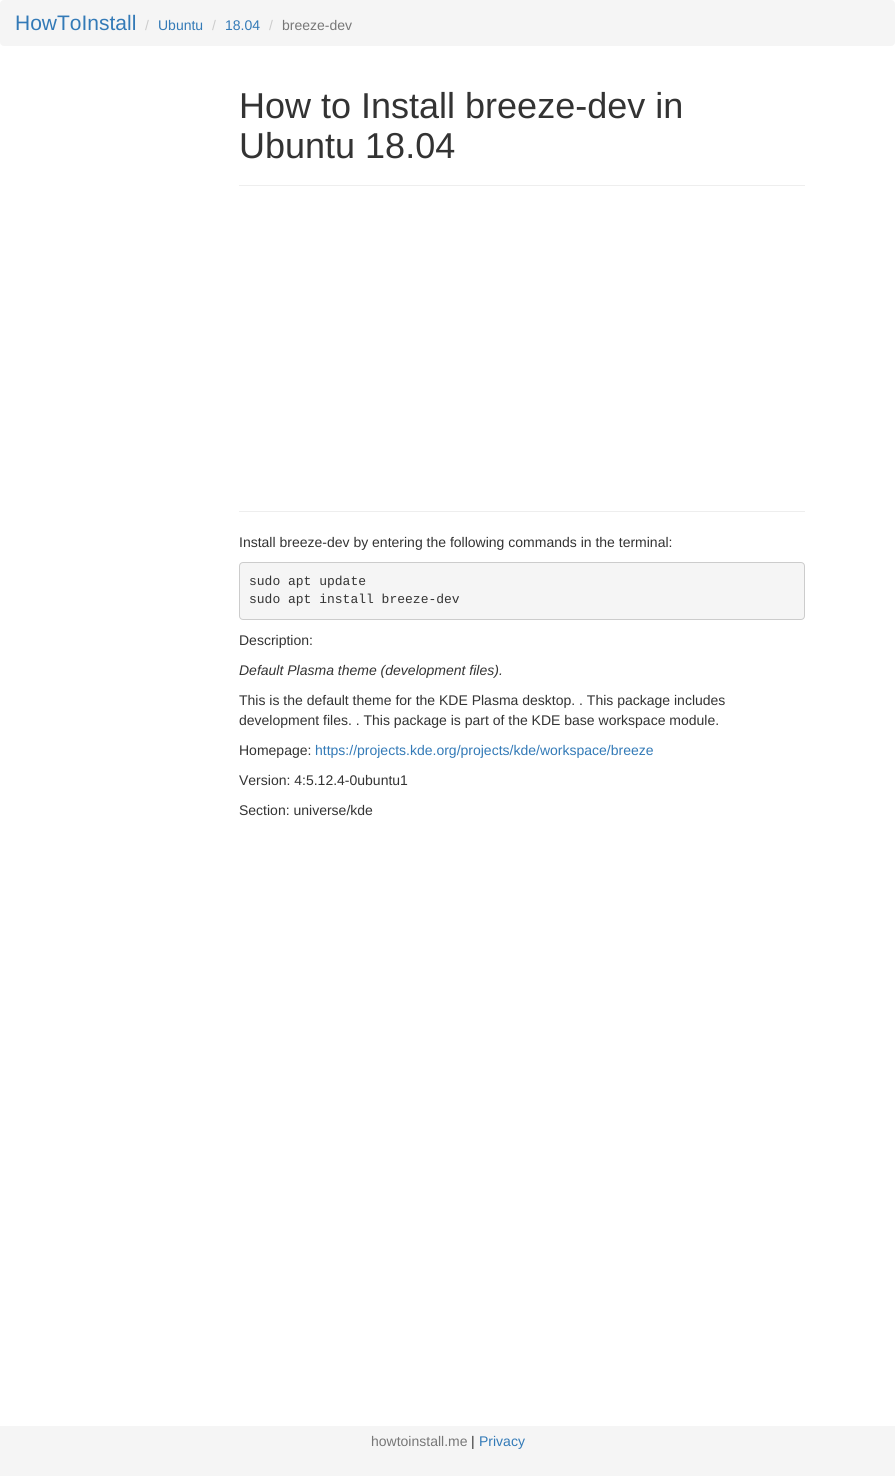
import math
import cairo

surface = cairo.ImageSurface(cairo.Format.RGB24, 895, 1476)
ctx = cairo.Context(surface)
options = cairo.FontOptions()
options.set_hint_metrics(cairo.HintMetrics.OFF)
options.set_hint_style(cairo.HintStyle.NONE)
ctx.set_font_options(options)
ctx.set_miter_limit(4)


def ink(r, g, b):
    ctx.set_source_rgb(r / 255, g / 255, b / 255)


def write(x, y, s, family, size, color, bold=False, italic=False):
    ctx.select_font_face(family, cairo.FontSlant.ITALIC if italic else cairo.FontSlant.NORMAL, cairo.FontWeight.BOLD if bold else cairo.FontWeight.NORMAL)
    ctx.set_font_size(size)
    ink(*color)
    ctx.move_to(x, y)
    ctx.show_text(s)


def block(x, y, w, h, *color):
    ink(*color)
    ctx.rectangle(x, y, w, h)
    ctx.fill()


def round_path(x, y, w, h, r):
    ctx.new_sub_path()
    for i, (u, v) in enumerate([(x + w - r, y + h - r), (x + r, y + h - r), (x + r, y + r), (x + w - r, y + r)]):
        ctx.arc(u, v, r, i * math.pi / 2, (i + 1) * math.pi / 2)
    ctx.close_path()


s1 = dict(family="Liberation Sans", size=21, color=(51, 122, 183))
s2 = dict(family="Liberation Sans", size=14, color=(204, 204, 204))
s3 = dict(family="Liberation Sans", size=14, color=(51, 122, 183))
s4 = dict(family="Liberation Sans", size=14, color=(119, 119, 119))
s5 = dict(family="Liberation Sans", size=36, color=(51, 51, 51))
s6 = dict(family="Liberation Sans", size=14, color=(51, 51, 51))
s7 = dict(family="Liberation Mono", size=13, color=(51, 51, 51))
s8 = dict(family="Liberation Sans", size=14, color=(51, 51, 51), italic=True)

ink(255, 255, 255)
ctx.paint()
ink(245, 245, 245)
round_path(0, 0, 895, 46, 4)
ctx.fill()
write(15, 30, "HowToInstall", **s1)
write(145, 30, "/", **s2)
write(158, 30, "Ubuntu", **s3)
write(212, 30, "/", **s2)
write(225, 30, "18.04", **s3)
write(269, 30, "/", **s2)
write(282, 30, "breeze-dev", **s4)
write(239, 118, "How to Install breeze-dev in", **s5)
write(239, 158, "Ubuntu 18.04", **s5)
block(239, 185, 566, 1, 238, 238, 238)
block(239, 511, 566, 1, 238, 238, 238)
write(239, 547, "Install breeze-dev by entering the following commands in the terminal:", **s6)
ink(245, 245, 245)
round_path(239.5, 562.5, 565, 57, 3.5)
ctx.fill_preserve()
ink(204, 204, 204)
ctx.set_line_width(1)
ctx.stroke()
write(249, 585, "sudo apt update", **s7)
write(249, 603, "sudo apt install breeze-dev", **s7)
write(239, 645, "Description:", **s6)
write(239, 675, "Default Plasma theme (development files).", **s8)
write(239, 705, "This is the default theme for the KDE Plasma desktop. . This package includes", **s6)
write(239, 725, "development files. . This package is part of the KDE base workspace module.", **s6)
write(239, 755, "Homepage:", **s6)
write(315, 755, "https://projects.kde.org/projects/kde/workspace/breeze", **s3)
write(239, 785, "Version: 4:5.12.4-0ubuntu1", **s6)
write(239, 815, "Section: universe/kde", **s6)
block(0, 1426, 895, 50, 245, 245, 245)
write(371, 1446, "howtoinstall.me", **s4)
write(471, 1446, "|", **s6)
write(479, 1446, "Privacy", **s3)
surface.write_to_png("screenshot.png")
